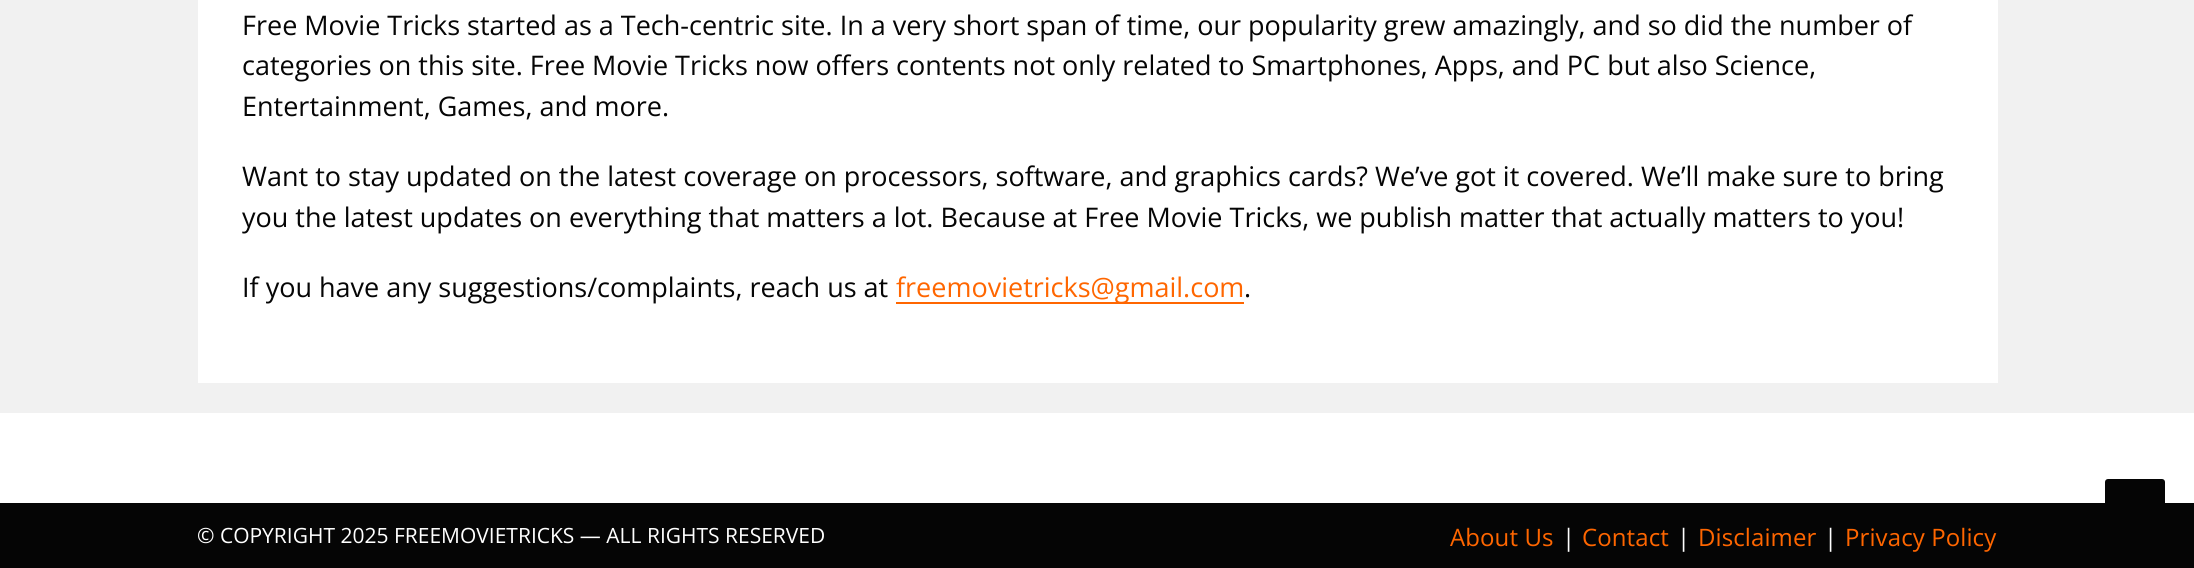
import math
import cairo

surface = cairo.ImageSurface(cairo.Format.RGB24, 2194, 568)
ctx = cairo.Context(surface)
options = cairo.FontOptions()
options.set_hint_metrics(cairo.HintMetrics.OFF)
options.set_hint_style(cairo.HintStyle.NONE)
ctx.set_font_options(options)
ctx.set_miter_limit(4)


def ink(r, g, b):
    ctx.set_source_rgb(r / 255, g / 255, b / 255)


def write(x, y, s, family, size, color, bold=False, italic=False):
    ctx.select_font_face(family, cairo.FontSlant.ITALIC if italic else cairo.FontSlant.NORMAL, cairo.FontWeight.BOLD if bold else cairo.FontWeight.NORMAL)
    ctx.set_font_size(size)
    ink(*color)
    ctx.move_to(x, y)
    ctx.show_text(s)


def write_spaced(x, y, s, letter, word):
    ctx.move_to(x, y)
    for ch in s:
        ctx.show_text(ch)
        ctx.rel_move_to(letter + word * (ch == ' '), 0)


def block(x, y, w, h, *color):
    ink(*color)
    ctx.rectangle(x, y, w, h)
    ctx.fill()


def round_path(x, y, w, h, r):
    ctx.new_sub_path()
    for i, (u, v) in enumerate([(x + w - r, y + h - r), (x + r, y + h - r), (x + r, y + r), (x + w - r, y + r)]):
        ctx.arc(u, v, r, i * math.pi / 2, (i + 1) * math.pi / 2)
    ctx.close_path()


s1 = dict(family="Open Sans", size=27, color=(5, 5, 5))
s2 = dict(family="Open Sans", size=27, color=(255, 102, 0))
s3 = dict(family="Open Sans", size=21, color=(255, 255, 255))

ink(241, 241, 241)
ctx.paint()
block(198, 0, 1800, 383, 255, 255, 255)
write(242, 35, "Free Movie Tricks started as a Tech-centric site. In a very short span of time, our popularity grew amazingly, and so did the number of", **s1)
write(242, 75, "categories on this site. Free Movie Tricks now offers contents not only related to Smartphones, Apps, and PC but also Science,", **s1)
write(242, 116, "Entertainment, Games, and more.", **s1)
write(242, 186, "Want to stay updated on the latest coverage on processors, software, and graphics cards? We’ve got it covered. We’ll make sure to bring", **s1)
write(242, 227, "you the latest updates on everything that matters a lot. Because at Free Movie Tricks, we publish matter that actually matters to you!", **s1)
write(242, 297, "If you have any suggestions/complaints, reach us at", **s1)
block(896, 302, 348, 2, 255, 102, 0)
write(896, 297, "freemovietricks@gmail.com", **s2)
write(1244, 297, ".", **s1)
block(0, 413, 2194, 90, 255, 255, 255)
block(0, 503, 2194, 65, 5, 5, 5)
write(197, 543, "© COPYRIGHT 2025 FREEMOVIETRICKS — ALL RIGHTS RESERVED", **s3)
ctx.set_font_size(24)
ink(255, 102, 0)
write_spaced(1450, 546, "About Us", 0.1, 0)
ink(255, 255, 255)
write_spaced(1562, 546, "|", 0.1, 0)
ink(255, 102, 0)
write_spaced(1582, 546, "Contact", 0.1, 0)
ink(255, 255, 255)
write_spaced(1677, 546, "|", 0.1, 0)
ink(255, 102, 0)
write_spaced(1698, 546, "Disclaimer", 0.1, 0)
ink(255, 255, 255)
write_spaced(1824, 546, "|", 0.1, 0)
ink(255, 102, 0)
write_spaced(1845, 546, "Privacy Policy", 0.1, 0)
ink(5, 5, 5)
round_path(2105, 479, 60, 60, 3)
ctx.fill()
surface.write_to_png("screenshot.png")
